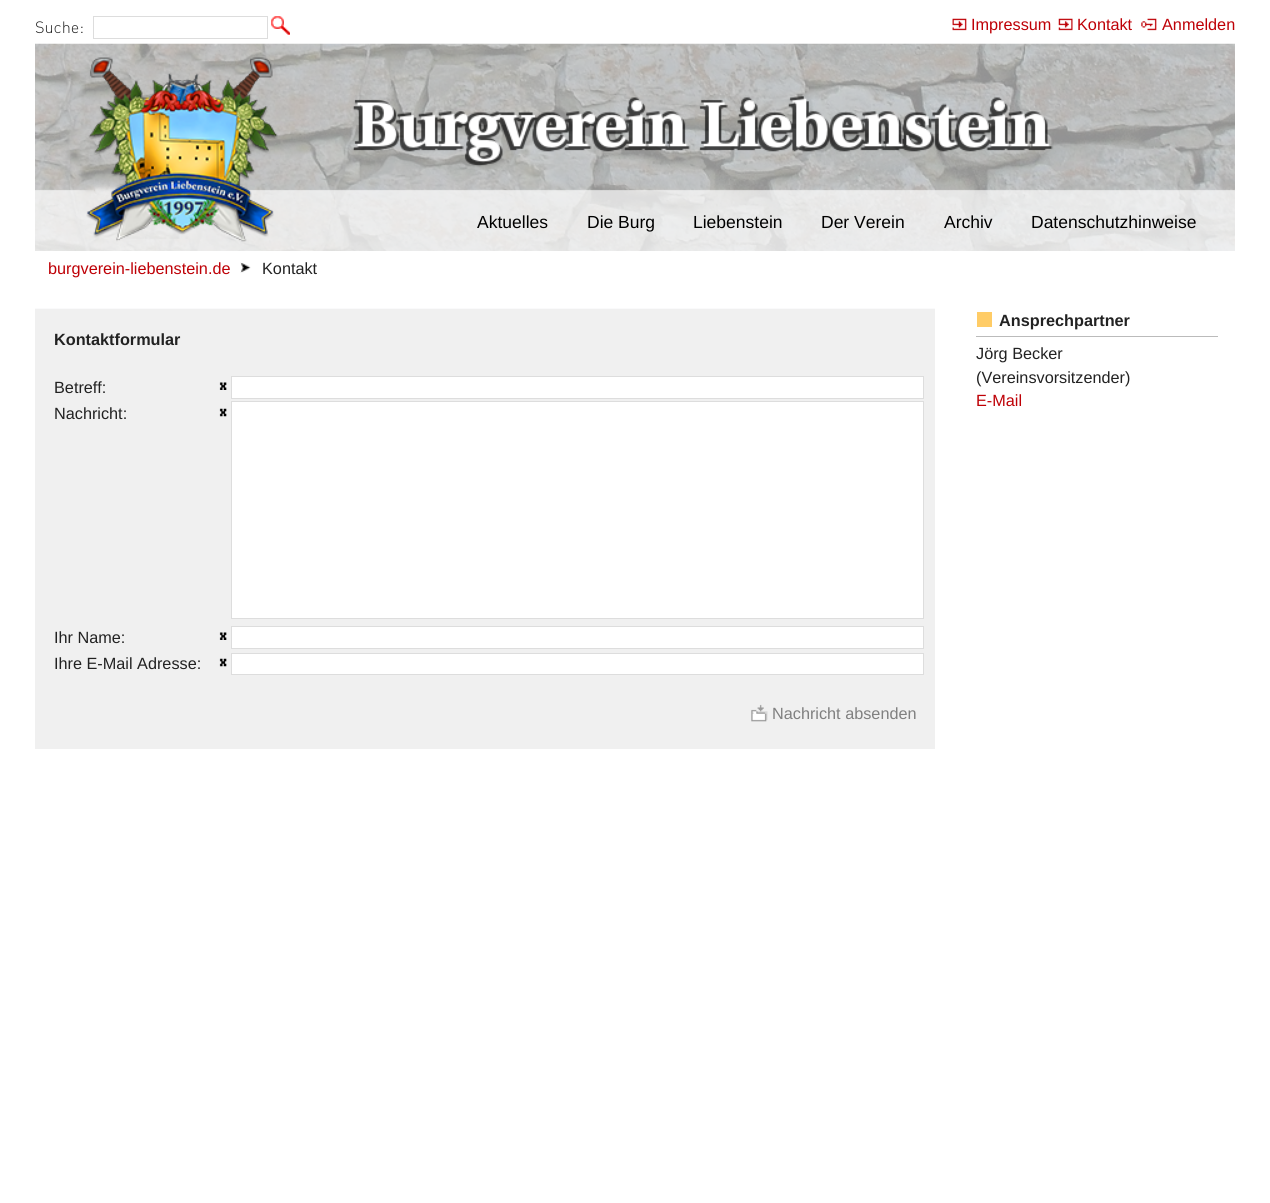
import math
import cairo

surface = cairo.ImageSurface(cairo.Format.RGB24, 1270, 1203)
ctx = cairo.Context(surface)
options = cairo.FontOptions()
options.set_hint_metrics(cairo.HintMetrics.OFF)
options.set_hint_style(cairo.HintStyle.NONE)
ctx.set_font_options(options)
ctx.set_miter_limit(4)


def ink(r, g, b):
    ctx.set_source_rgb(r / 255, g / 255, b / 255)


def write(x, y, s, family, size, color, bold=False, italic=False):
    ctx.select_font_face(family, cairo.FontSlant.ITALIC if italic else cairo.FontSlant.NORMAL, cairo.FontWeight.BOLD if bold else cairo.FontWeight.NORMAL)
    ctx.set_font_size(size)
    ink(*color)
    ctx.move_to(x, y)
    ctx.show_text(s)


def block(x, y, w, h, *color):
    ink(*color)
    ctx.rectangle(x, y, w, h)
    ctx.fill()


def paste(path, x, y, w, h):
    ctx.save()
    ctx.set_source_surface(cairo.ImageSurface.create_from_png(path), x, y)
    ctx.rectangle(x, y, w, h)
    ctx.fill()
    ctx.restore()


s1 = dict(family="DIN Light", size=16.25, color=(34, 34, 34))
s2 = dict(family="Liberation Sans", size=16.25, color=(190, 0, 6))
s3 = dict(family="Liberation Sans", size=17.5, color=(0, 0, 0))
s4 = dict(family="Liberation Sans", size=16.25, color=(34, 34, 34))
s5 = dict(family="Liberation Sans", size=16.25, color=(34, 34, 34), bold=True)
s6 = dict(family="Liberation Sans", size=16.25, color=(128, 128, 128))

ink(255, 255, 255)
ctx.paint()
write(35, 33, "Suche:", **s1)
ctx.rectangle(93.5, 16.5, 174, 22)
ink(221, 221, 221)
ctx.set_line_width(1)
ctx.stroke()
paste("pic1.png", 271, 16, 19, 19)
paste("pic2.png", 952, 18, 15, 13)
write(971, 30, "Impressum", **s2)
paste("pic3.png", 1058, 18, 15, 13)
write(1077, 30, "Kontakt", **s2)
paste("pic4.png", 1141, 18, 16, 13)
write(1162, 30, "Anmelden", **s2)
paste("pic5.png", 35, 43, 1200, 208)
write(477, 228, "Aktuelles", **s3)
write(587, 228, "Die Burg", **s3)
write(693, 228, "Liebenstein", **s3)
write(821, 228, "Der Verein", **s3)
write(944, 228, "Archiv", **s3)
write(1031, 228, "Datenschutzhinweise", **s3)
paste("pic6.png", 240, 262, 11, 11)
write(48, 274, "burgverein-liebenstein.de", **s2)
write(262, 274, "Kontakt", **s4)
paste("pic7.png", 35, 308, 900, 1)
block(35, 309, 900, 440, 240, 240, 240)
write(54, 345, "Kontaktformular", **s5)
write(54, 393, "Betreff:", **s4)
paste("pic8.png", 219, 382, 8, 8)
ink(255, 255, 255)
ctx.rectangle(231.5, 376.5, 692, 22)
ctx.fill_preserve()
ink(221, 221, 221)
ctx.stroke()
write(54, 419, "Nachricht:", **s4)
paste("pic9.png", 219, 408, 8, 9)
ink(255, 255, 255)
ctx.rectangle(231.5, 401.5, 692, 217)
ctx.fill_preserve()
ink(221, 221, 221)
ctx.stroke()
write(54, 643, "Ihr Name:", **s4)
paste("pic8.png", 219, 632, 8, 8)
ink(255, 255, 255)
ctx.rectangle(231.5, 626.5, 692, 22)
ctx.fill_preserve()
ink(221, 221, 221)
ctx.stroke()
write(54, 669, "Ihre E-Mail Adresse:", **s4)
paste("pic9.png", 219, 658, 8, 9)
ink(255, 255, 255)
ctx.rectangle(231.5, 653.5, 692, 21)
ctx.fill_preserve()
ink(221, 221, 221)
ctx.stroke()
paste("pic10.png", 751, 704, 17, 18)
write(772, 719, "Nachricht absenden", **s6)
block(977, 312, 15, 15, 255, 204, 102)
block(976, 336, 242, 1, 187, 187, 187)
write(999, 326, "Ansprechpartner", **s5)
write(976, 359, "Jörg Becker", **s4)
write(976, 383, "(Vereinsvorsitzender)", **s4)
write(976, 406, "E-Mail", **s2)
surface.write_to_png("screenshot.png")
